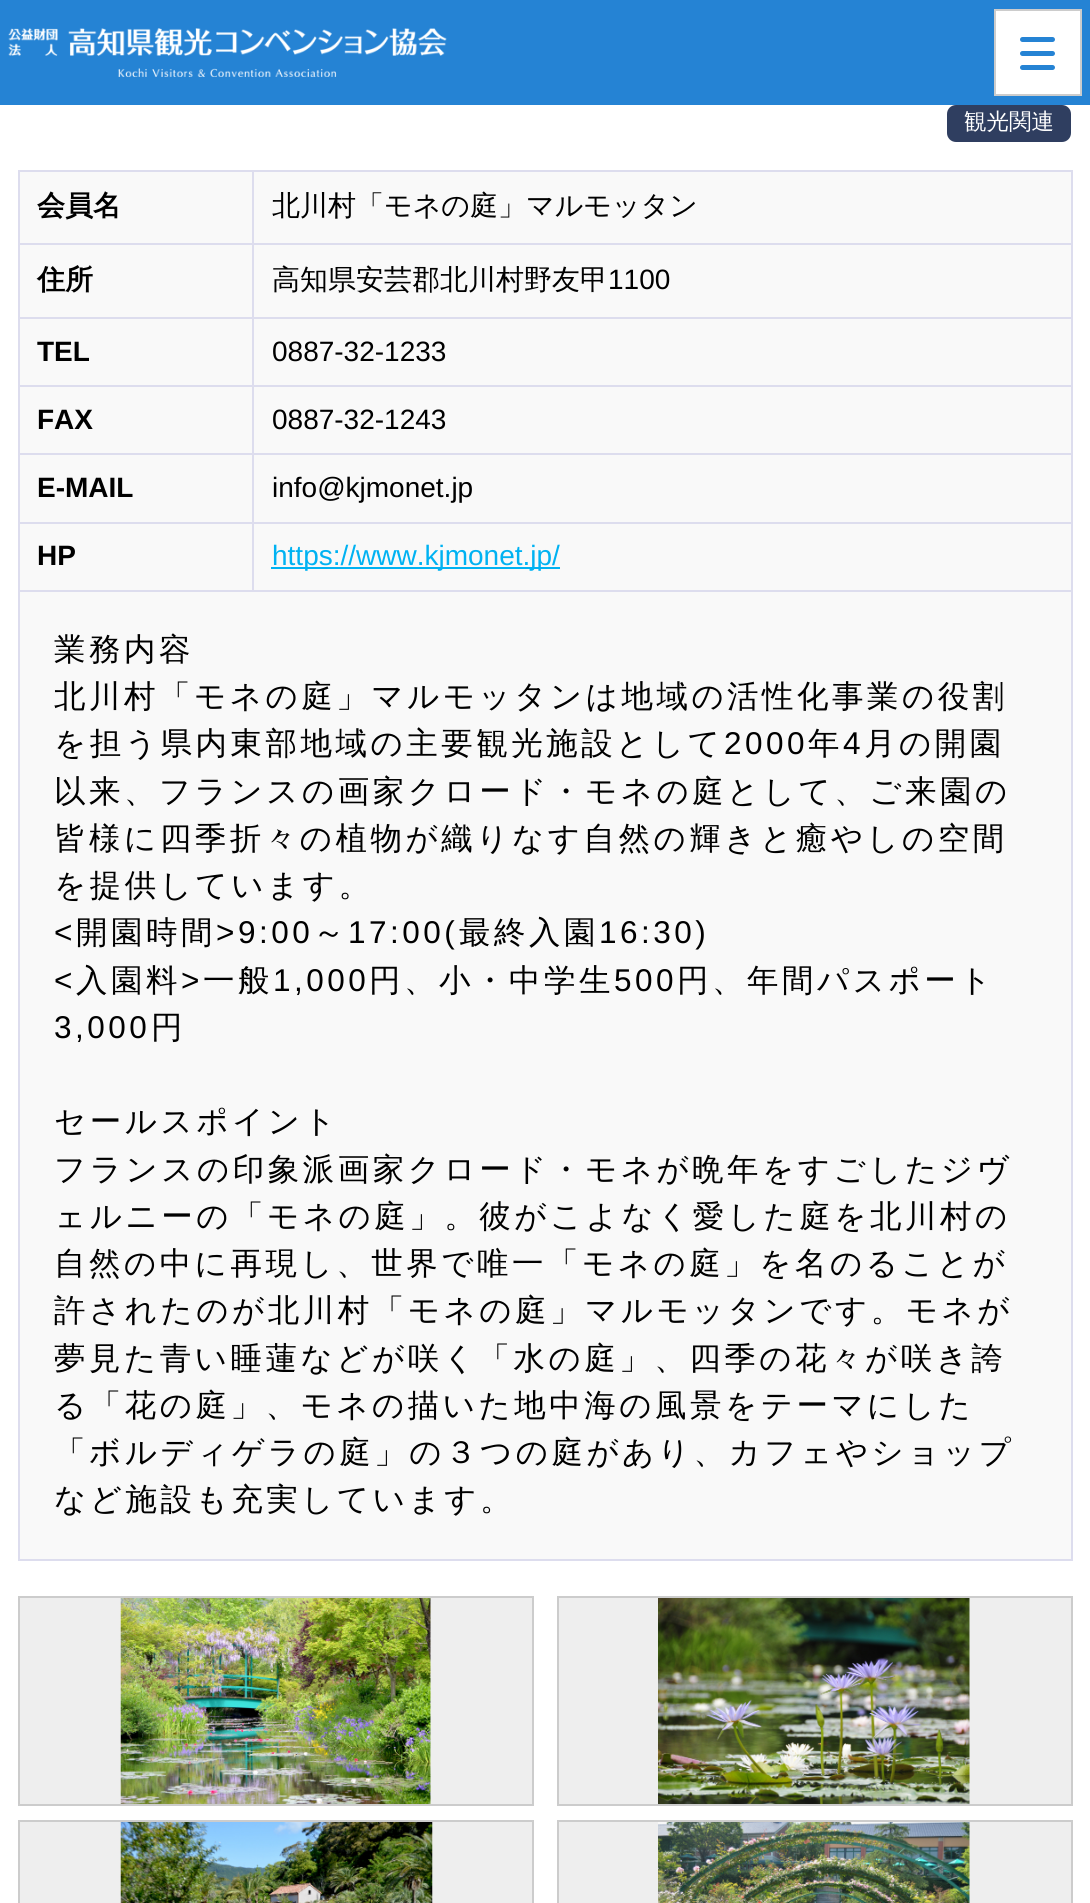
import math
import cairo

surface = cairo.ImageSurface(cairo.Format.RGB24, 1090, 1903)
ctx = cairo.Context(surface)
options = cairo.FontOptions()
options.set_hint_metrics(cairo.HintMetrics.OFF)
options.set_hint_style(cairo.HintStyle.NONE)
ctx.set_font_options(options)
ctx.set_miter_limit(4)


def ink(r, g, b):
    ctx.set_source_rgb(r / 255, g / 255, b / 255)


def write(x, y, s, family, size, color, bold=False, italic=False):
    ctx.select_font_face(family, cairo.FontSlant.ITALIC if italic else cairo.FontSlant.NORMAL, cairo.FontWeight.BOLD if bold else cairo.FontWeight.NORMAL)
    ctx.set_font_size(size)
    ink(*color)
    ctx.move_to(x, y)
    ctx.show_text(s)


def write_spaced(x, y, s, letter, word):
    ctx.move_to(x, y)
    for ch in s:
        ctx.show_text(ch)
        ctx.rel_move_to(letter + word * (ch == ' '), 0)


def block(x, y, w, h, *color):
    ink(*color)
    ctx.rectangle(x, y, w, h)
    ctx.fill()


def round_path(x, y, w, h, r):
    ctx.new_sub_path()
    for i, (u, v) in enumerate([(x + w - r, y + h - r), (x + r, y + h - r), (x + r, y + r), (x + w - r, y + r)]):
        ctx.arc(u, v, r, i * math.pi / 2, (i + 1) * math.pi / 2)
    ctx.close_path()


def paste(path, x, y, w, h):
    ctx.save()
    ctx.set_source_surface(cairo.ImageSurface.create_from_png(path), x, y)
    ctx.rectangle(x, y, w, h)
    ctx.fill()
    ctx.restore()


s1 = dict(family="WenQuanYi Zen Hei Medium", size=22.5, color=(255, 255, 255))
s2 = dict(family="WenQuanYi Zen Hei", size=28, color=(0, 0, 0), bold=True)
s3 = dict(family="WenQuanYi Zen Hei Medium", size=28, color=(0, 0, 0))
s4 = dict(family="Liberation Sans", size=28, color=(0, 0, 0))
s5 = dict(family="Liberation Sans", size=28, color=(0, 0, 0), bold=True)
s6 = dict(family="Liberation Sans", size=28, color=(0, 178, 242))

ink(255, 255, 255)
ctx.paint()
block(0, 0, 1090, 105, 37, 131, 212)
paste("pic1.png", 8, 28, 439, 49)
ink(255, 255, 255)
ctx.rectangle(995, 10, 86, 85)
ctx.fill_preserve()
ink(204, 204, 204)
ctx.stroke()
ink(37, 131, 212)
round_path(1020, 51, 35, 5, 2.5)
ctx.fill()
round_path(1020, 37, 35, 5, 2.5)
ctx.fill()
round_path(1020, 65, 35, 5, 2.5)
ctx.fill()
ink(249, 249, 249)
ctx.rectangle(19, 171, 1053, 1389)
ctx.fill_preserve()
ink(221, 221, 238)
ctx.stroke()
ink(47, 62, 96)
round_path(947, 105, 124, 37, 9)
ctx.fill()
write(964, 129, "観光関連", **s1)
block(252, 590, 821, 2, 221, 221, 238)
block(252, 522, 2, 70, 221, 221, 238)
block(252, 522, 821, 2, 221, 221, 238)
block(252, 453, 2, 70, 221, 221, 238)
block(252, 453, 821, 2, 221, 221, 238)
block(252, 385, 2, 70, 221, 221, 238)
block(252, 385, 821, 2, 221, 221, 238)
block(252, 317, 2, 70, 221, 221, 238)
block(252, 317, 821, 2, 221, 221, 238)
block(252, 243, 2, 76, 221, 221, 238)
block(252, 243, 821, 2, 221, 221, 238)
block(252, 172, 2, 73, 221, 221, 238)
block(19, 243, 235, 2, 221, 221, 238)
write(37, 215, "会員名", **s2)
write(272, 215, "北川村「モネの庭」マルモッタン", **s3)
block(19, 317, 235, 2, 221, 221, 238)
write(37, 289, "住所", **s2)
write(272, 289, "高知県安芸郡北川村野友甲", **s3)
write(608, 289, "1100", **s4)
block(19, 385, 235, 2, 221, 221, 238)
write(37, 361, "TEL", **s5)
write(272, 361, "0887-32-1233", **s4)
block(19, 453, 235, 2, 221, 221, 238)
write(37, 429, "FAX", **s5)
write(272, 429, "0887-32-1243", **s4)
block(19, 522, 235, 2, 221, 221, 238)
write(37, 497, "E-MAIL", **s5)
write(272, 497, "info@kjmonet.jp", **s4)
block(19, 590, 235, 2, 221, 221, 238)
write(37, 565, "HP", **s5)
block(271, 567, 289, 2, 0, 178, 242)
write(272, 565, "https://www.kjmonet.jp/", **s6)
ctx.select_font_face("WenQuanYi Zen Hei Medium")
ctx.set_font_size(31.5)
ink(0, 0, 0)
write_spaced(54, 660, "業務内容", 3.5, 0)
write_spaced(54, 707, "北川村「モネの庭」マルモッタンは地域の活性化事業の役割", 3.5, 0)
write_spaced(54, 754, "を担う県内東部地域の主要観光施設として", 3.5, 0)
ctx.select_font_face("Liberation Sans")
write_spaced(724, 754, "2000", 3.5, 0)
ctx.select_font_face("WenQuanYi Zen Hei Medium")
write_spaced(808, 754, "年", 3.5, 0)
ctx.select_font_face("Liberation Sans")
write_spaced(843, 754, "4", 3.5, 0)
ctx.select_font_face("WenQuanYi Zen Hei Medium")
write_spaced(864, 754, "月の開園", 3.5, 0)
write_spaced(54, 802, "以来、フランスの画家クロード・モネの庭として、ご来園の", 3.5, 0)
write_spaced(54, 849, "皆様に四季折々の植物が織りなす自然の輝きと癒やしの空間", 3.5, 0)
write_spaced(54, 896, "を提供しています。", 3.5, 0)
ctx.select_font_face("Liberation Sans")
write_spaced(54, 943, "<", 3.5, 0)
ctx.select_font_face("WenQuanYi Zen Hei Medium")
write_spaced(76, 943, "開園時間", 3.5, 0)
ctx.select_font_face("Liberation Sans")
write_spaced(216, 943, ">9:00", 3.5, 0)
ctx.select_font_face("WenQuanYi Zen Hei Medium")
write_spaced(313, 943, "～", 3.5, 0)
ctx.select_font_face("Liberation Sans")
write_spaced(348, 943, "17:00(", 3.5, 0)
ctx.select_font_face("WenQuanYi Zen Hei Medium")
write_spaced(459, 943, "最終入園", 3.5, 0)
ctx.select_font_face("Liberation Sans")
write_spaced(599, 943, "16:30)", 3.5, 0)
write_spaced(54, 991, "<", 3.5, 0)
ctx.select_font_face("WenQuanYi Zen Hei Medium")
write_spaced(76, 991, "入園料", 3.5, 0)
ctx.select_font_face("Liberation Sans")
write_spaced(181, 991, ">", 3.5, 0)
ctx.select_font_face("WenQuanYi Zen Hei Medium")
write_spaced(203, 991, "一般", 3.5, 0)
ctx.select_font_face("Liberation Sans")
write_spaced(273, 991, "1,000", 3.5, 0)
ctx.select_font_face("WenQuanYi Zen Hei Medium")
write_spaced(369, 991, "円、小・中学生", 3.5, 0)
ctx.select_font_face("Liberation Sans")
write_spaced(614, 991, "500", 3.5, 0)
ctx.select_font_face("WenQuanYi Zen Hei Medium")
write_spaced(677, 991, "円、年間パスポート", 3.5, 0)
ctx.select_font_face("Liberation Sans")
write_spaced(54, 1038, "3,000", 3.5, 0)
ctx.select_font_face("WenQuanYi Zen Hei Medium")
write_spaced(151, 1038, "円", 3.5, 0)
write_spaced(54, 1132, "セールスポイント", 3.5, 0)
write_spaced(54, 1180, "フランスの印象派画家クロード・モネが晩年をすごしたジヴ", 3.5, 0)
write_spaced(54, 1227, "ェルニーの「モネの庭」。彼がこよなく愛した庭を北川村の", 3.5, 0)
write_spaced(54, 1274, "自然の中に再現し、世界で唯一「モネの庭」を名のることが", 3.5, 0)
write_spaced(54, 1321, "許されたのが北川村「モネの庭」マルモッタンです。モネが", 3.5, 0)
write_spaced(54, 1369, "夢見た青い睡蓮などが咲く「水の庭」、四季の花々が咲き誇", 3.5, 0)
write_spaced(54, 1416, "る「花の庭」、モネの描いた地中海の風景をテーマにした", 3.5, 0)
write_spaced(54, 1463, "「ボルディゲラの庭」の３つの庭があり、カフェやショップ", 3.5, 0)
write_spaced(54, 1510, "など施設も充実しています。", 3.5, 0)
block(20, 1598, 512, 206, 238, 238, 238)
paste("pic2.png", 120, 1598, 311, 206)
ctx.rectangle(19, 1597, 514, 208)
ink(204, 204, 204)
ctx.stroke()
block(559, 1598, 512, 206, 238, 238, 238)
paste("pic3.png", 658, 1598, 312, 206)
ctx.rectangle(558, 1597, 514, 208)
ink(204, 204, 204)
ctx.stroke()
block(20, 1822, 512, 81, 238, 238, 238)
paste("pic4.png", 120, 1822, 313, 81)
ctx.rectangle(19, 1821, 514, 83)
ink(204, 204, 204)
ctx.stroke()
block(559, 1822, 512, 81, 238, 238, 238)
paste("pic5.png", 658, 1822, 312, 81)
ctx.rectangle(558, 1821, 514, 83)
ink(204, 204, 204)
ctx.stroke()
surface.write_to_png("screenshot.png")
